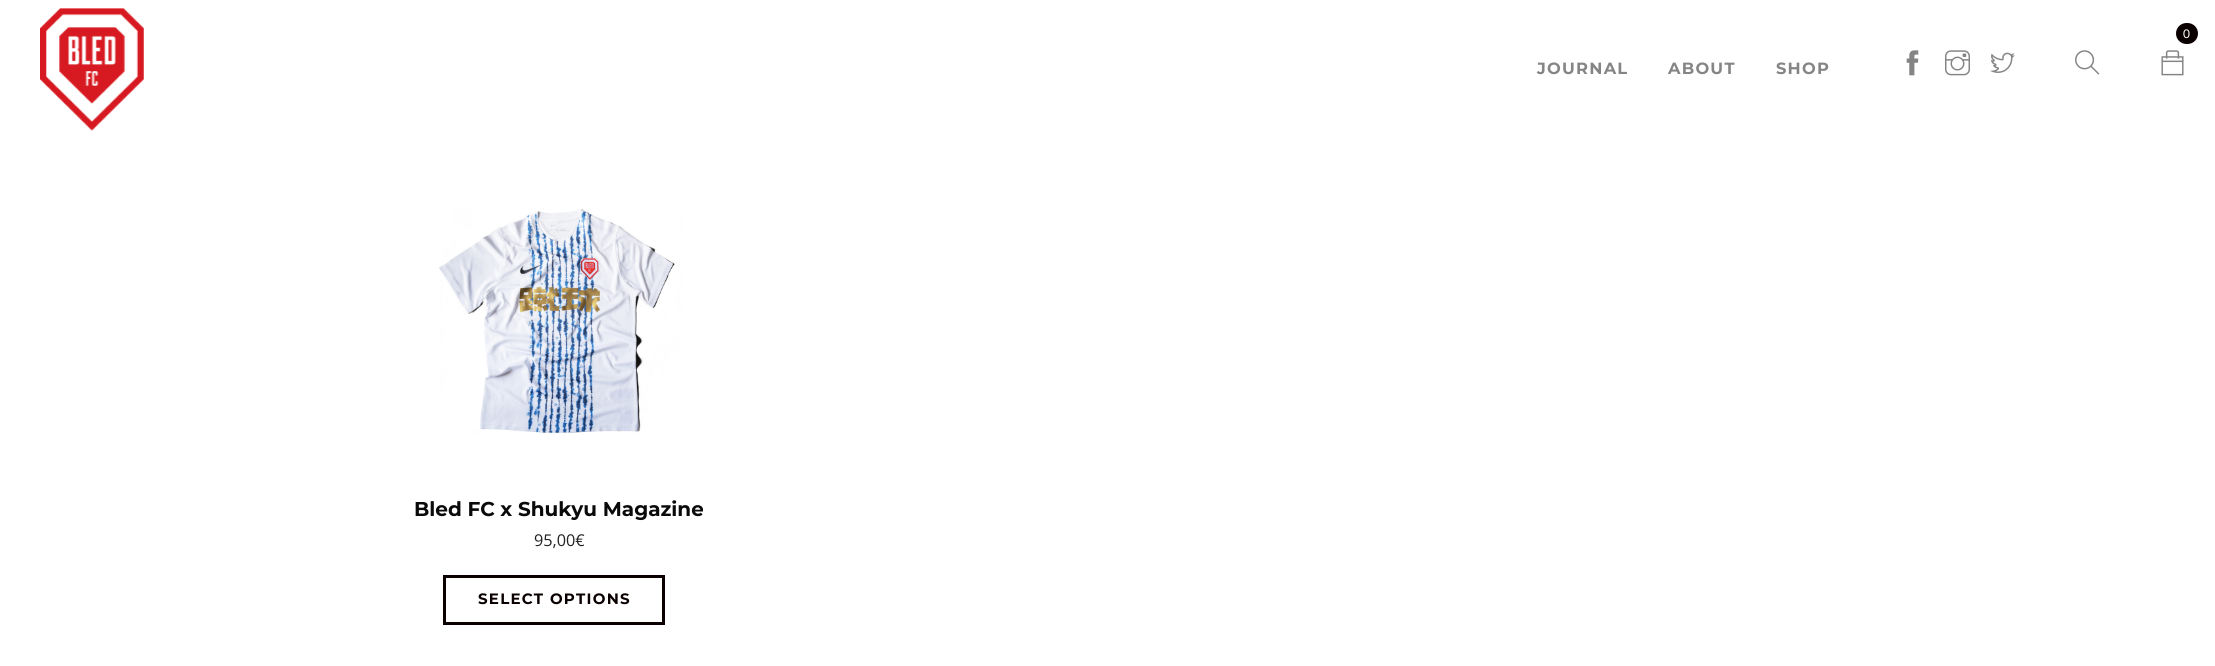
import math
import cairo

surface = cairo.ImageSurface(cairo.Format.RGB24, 2215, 666)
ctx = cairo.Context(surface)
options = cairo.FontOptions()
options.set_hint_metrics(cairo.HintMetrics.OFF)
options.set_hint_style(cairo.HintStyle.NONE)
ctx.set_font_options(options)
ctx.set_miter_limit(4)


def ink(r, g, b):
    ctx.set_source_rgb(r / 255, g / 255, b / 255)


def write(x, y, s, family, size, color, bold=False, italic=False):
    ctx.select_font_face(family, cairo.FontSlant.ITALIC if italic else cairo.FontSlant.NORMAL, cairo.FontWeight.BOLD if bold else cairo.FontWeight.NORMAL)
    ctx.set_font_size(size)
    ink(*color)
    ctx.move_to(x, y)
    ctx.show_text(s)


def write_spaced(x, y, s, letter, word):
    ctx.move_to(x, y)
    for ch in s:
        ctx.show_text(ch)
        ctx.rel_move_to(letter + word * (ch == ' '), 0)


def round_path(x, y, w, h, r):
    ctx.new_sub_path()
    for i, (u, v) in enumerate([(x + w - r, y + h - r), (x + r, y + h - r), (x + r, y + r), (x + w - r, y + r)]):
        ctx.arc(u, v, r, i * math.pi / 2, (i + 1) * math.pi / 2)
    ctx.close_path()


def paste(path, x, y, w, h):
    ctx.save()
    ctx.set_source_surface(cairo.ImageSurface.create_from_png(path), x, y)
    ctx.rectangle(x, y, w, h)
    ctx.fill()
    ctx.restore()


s1 = dict(family="Montserrat Thin", size=20, color=(10, 10, 10))
s2 = dict(family="Open Sans", size=16.25, color=(35, 35, 35))

ink(255, 255, 255)
ctx.paint()
paste("pic1.png", 40, 8, 104, 123)
ink(10, 0, 0)
round_path(2176, 23, 22, 21, 10.5)
ctx.fill()
ctx.select_font_face("Lato")
ctx.set_font_size(12)
ink(255, 255, 255)
write_spaced(2183, 38, "0", 1.25, 0)
paste("pic2.png", 2161, 50, 23, 26)
ctx.select_font_face("Montserrat Thin")
ctx.set_font_size(16.25)
ink(133, 133, 133)
write_spaced(1537, 74, "JOURNAL", 1.25, 0)
write_spaced(1668, 74, "ABOUT", 1.25, 0)
write_spaced(1776, 74, "SHOP", 1.25, 0)
paste("pic3.png", 1906, 50, 13, 26)
paste("pic4.png", 1945, 50, 25, 26)
paste("pic5.png", 1990, 52, 25, 21)
paste("pic6.png", 2075, 50, 25, 25)
paste("pic7.png", 439, 209, 245, 225)
write(414, 516, "Bled FC x Shukyu Magazine", **s1)
write(534, 546, "95,00€", **s2)
ctx.rectangle(444.5, 576.5, 219, 47)
ink(10, 0, 0)
ctx.set_line_width(3)
ctx.stroke()
ctx.select_font_face("Montserrat Thin")
ctx.set_font_size(15)
write_spaced(478, 604, "SELECT OPTIONS", 1.25, 0)
surface.write_to_png("screenshot.png")
